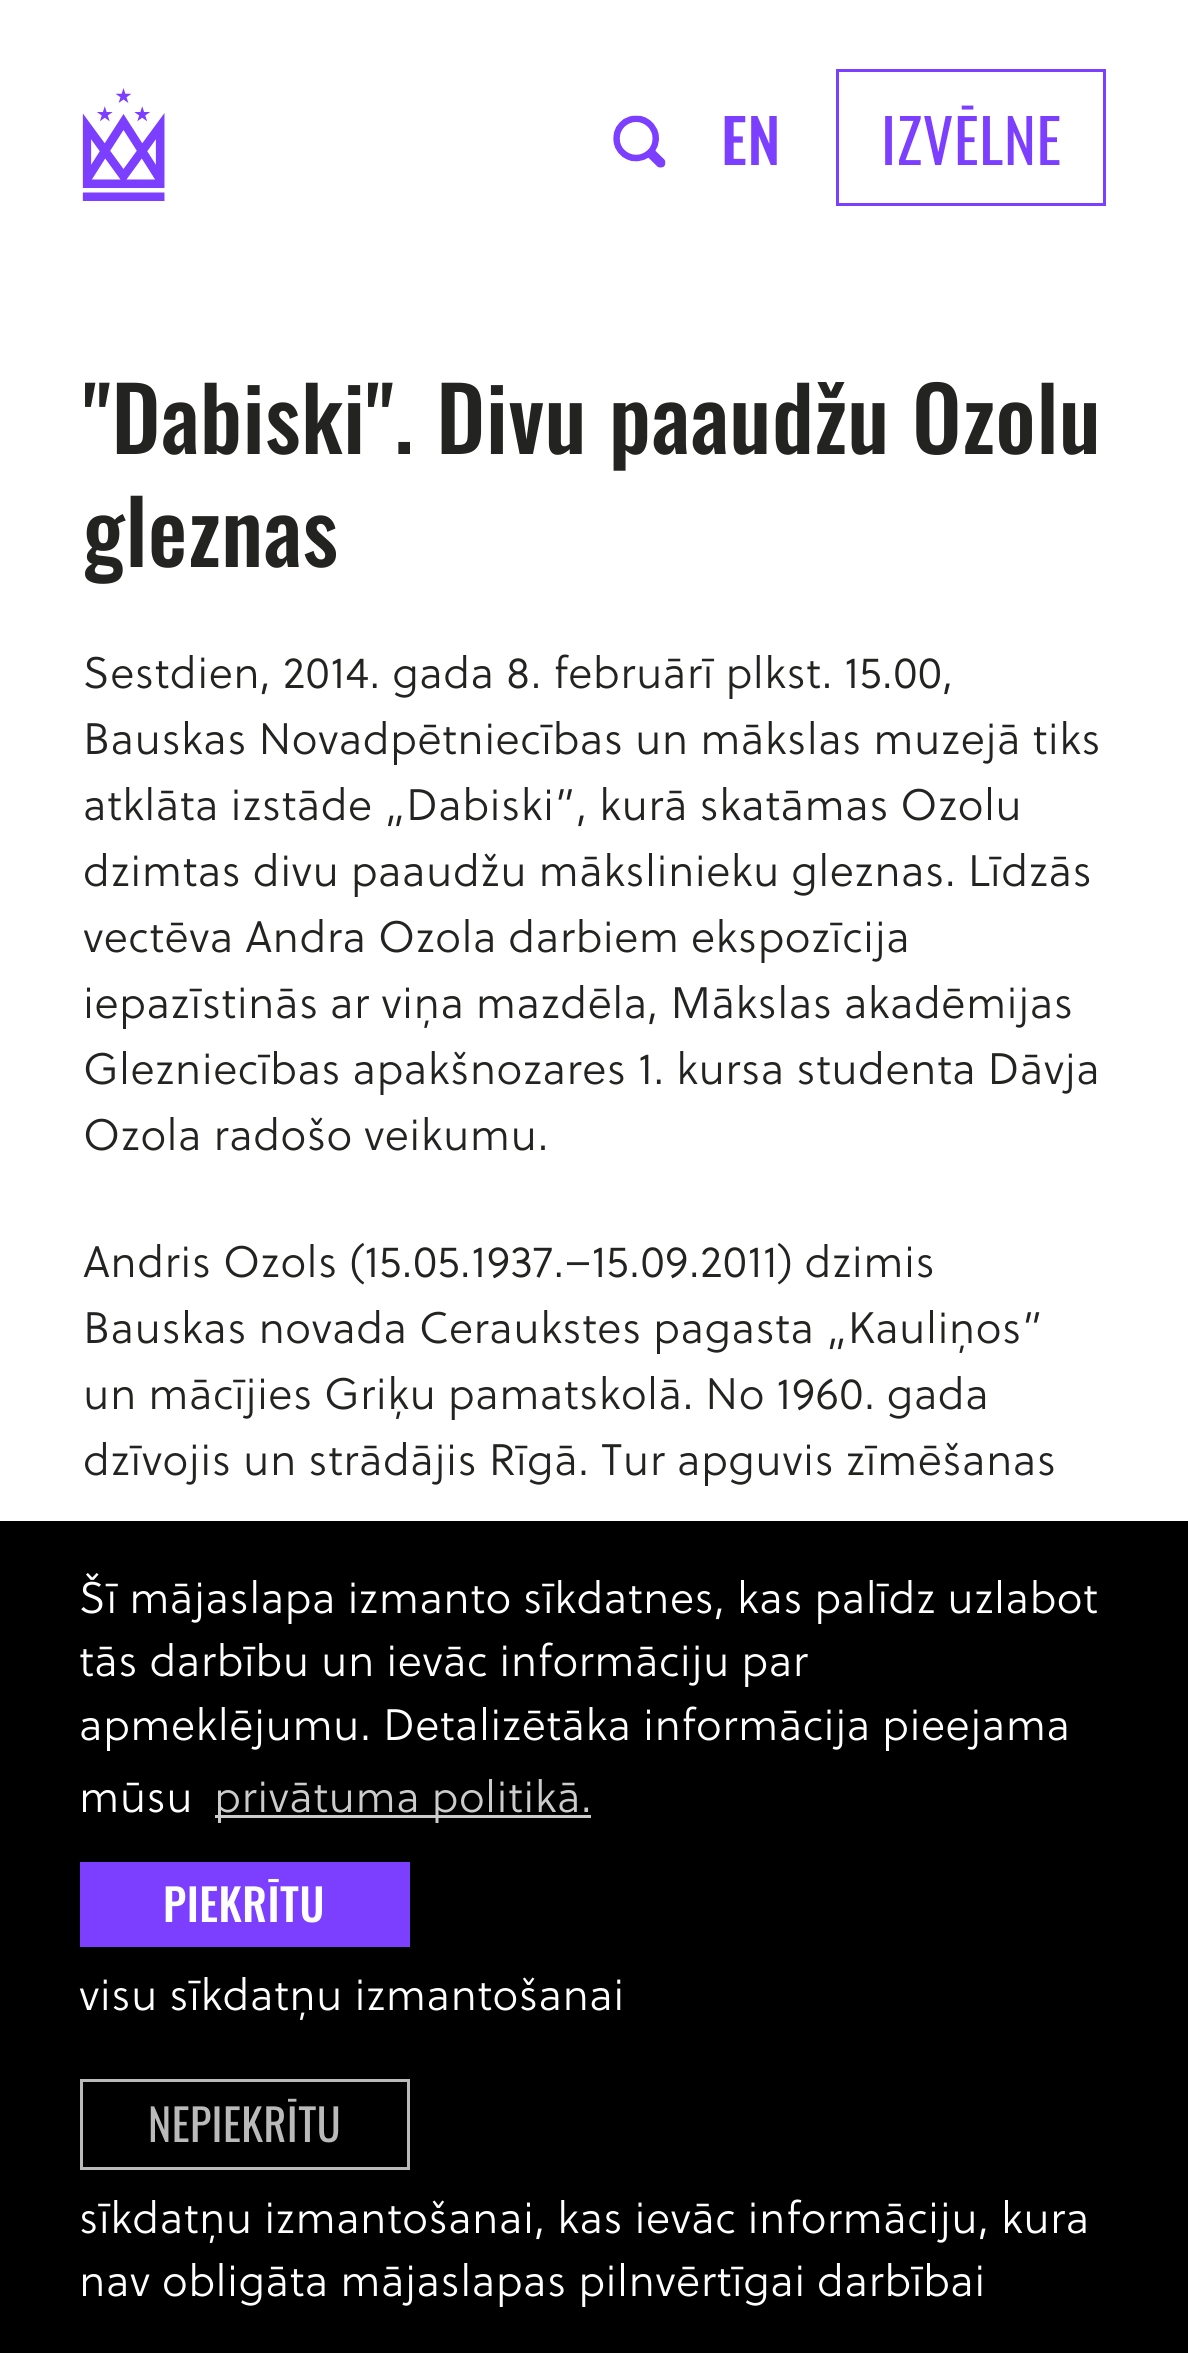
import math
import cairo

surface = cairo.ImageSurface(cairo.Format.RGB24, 1188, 2353)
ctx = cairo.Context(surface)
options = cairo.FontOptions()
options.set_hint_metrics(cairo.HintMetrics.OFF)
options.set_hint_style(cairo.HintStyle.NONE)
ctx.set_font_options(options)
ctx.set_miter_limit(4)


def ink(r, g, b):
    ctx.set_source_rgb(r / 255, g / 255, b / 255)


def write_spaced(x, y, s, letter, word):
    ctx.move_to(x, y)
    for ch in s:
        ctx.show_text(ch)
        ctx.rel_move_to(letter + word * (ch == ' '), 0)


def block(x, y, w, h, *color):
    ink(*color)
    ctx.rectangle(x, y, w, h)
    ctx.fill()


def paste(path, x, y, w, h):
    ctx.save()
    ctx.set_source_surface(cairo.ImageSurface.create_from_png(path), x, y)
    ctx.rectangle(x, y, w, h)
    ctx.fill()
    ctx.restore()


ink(255, 255, 255)
ctx.paint()
paste("pic1.png", 82, 88, 83, 113)
paste("pic2.png", 613, 115, 53, 53)
ctx.select_font_face("Oswald Medium")
ctx.set_font_size(60.5)
ink(124, 62, 255)
write_spaced(721, 165, "EN", 0.7, 0)
ctx.rectangle(837.5, 70.5, 267, 134)
ctx.set_line_width(3)
ctx.stroke()
ctx.select_font_face("Oswald")
write_spaced(881, 165, "IZVĒLNE", 0.7, 0)
ctx.select_font_face("Oswald Medium")
ctx.set_font_size(88)
ink(35, 35, 33)
write_spaced(83, 454, "\"Dabiski\". Divu paaudžu Ozolu", 0.7, 0)
write_spaced(83, 567, "gleznas", 0.7, 0)
ctx.select_font_face("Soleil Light")
ctx.set_font_size(44)
write_spaced(83, 688, "Sestdien, 2014. gada 8. februārī plkst. 15.00,", 0.45, 0)
write_spaced(83, 754, "Bauskas Novadpētniecības un mākslas muzejā tiks", 0.45, 0)
write_spaced(83, 820, "atklāta izstāde „Dabiski”, kurā skatāmas Ozolu", 0.45, 0)
write_spaced(83, 886, "dzimtas divu paaudžu mākslinieku gleznas. Līdzās", 0.45, 0)
write_spaced(83, 952, "vectēva Andra Ozola darbiem ekspozīcija", 0.45, 0)
write_spaced(83, 1018, "iepazīstinās ar viņa mazdēla, Mākslas akadēmijas", 0.45, 0)
write_spaced(83, 1084, "Glezniecības apakšnozares 1. kursa studenta Dāvja", 0.45, 0)
write_spaced(83, 1150, "Ozola radošo veikumu.", 0.45, 0)
write_spaced(83, 1277, "Andris Ozols (15.05.1937.–15.09.2011) dzimis", 0.45, 0)
write_spaced(83, 1343, "Bauskas novada Ceraukstes pagasta „Kauliņos”", 0.45, 0)
write_spaced(83, 1409, "un mācījies Griķu pamatskolā. No 1960. gada", 0.45, 0)
write_spaced(83, 1475, "dzīvojis un strādājis Rīgā. Tur apguvis zīmēšanas", 0.45, 0)
block(0, 1521, 1188, 832, 0, 0, 0)
ink(255, 255, 255)
write_spaced(79, 1613, "Šī mājaslapa izmanto sīkdatnes, kas palīdz uzlabot", 0.45, 0)
write_spaced(79, 1676, "tās darbību un ievāc informāciju par", 0.45, 0)
write_spaced(79, 1740, "apmeklējumu. Detalizētāka informācija pieejama", 0.45, 0)
write_spaced(79, 1812, "mūsu", 0.45, 0)
block(215, 1815, 376, 3, 204, 204, 204)
write_spaced(214, 1812, "privātuma politikā.", 0.45, 0)
block(80, 1862, 330, 85, 124, 62, 255)
ctx.select_font_face("Oswald Medium")
ink(255, 255, 255)
write_spaced(163, 1922, "PIEKRĪTU", 0.45, 0)
ctx.select_font_face("Soleil Light")
write_spaced(79, 2010, "visu sīkdatņu izmantošanai", 0.45, 0)
ctx.rectangle(81.5, 2080.5, 327, 88)
ink(186, 186, 186)
ctx.stroke()
ctx.select_font_face("Oswald")
write_spaced(148, 2142, "NEPIEKRĪTU", 0.45, 0)
ctx.select_font_face("Soleil Light")
ink(255, 255, 255)
write_spaced(79, 2233, "sīkdatņu izmantošanai, kas ievāc informāciju, kura", 0.45, 0)
write_spaced(79, 2296, "nav obligāta mājaslapas pilnvērtīgai darbībai", 0.45, 0)
surface.write_to_png("screenshot.png")
